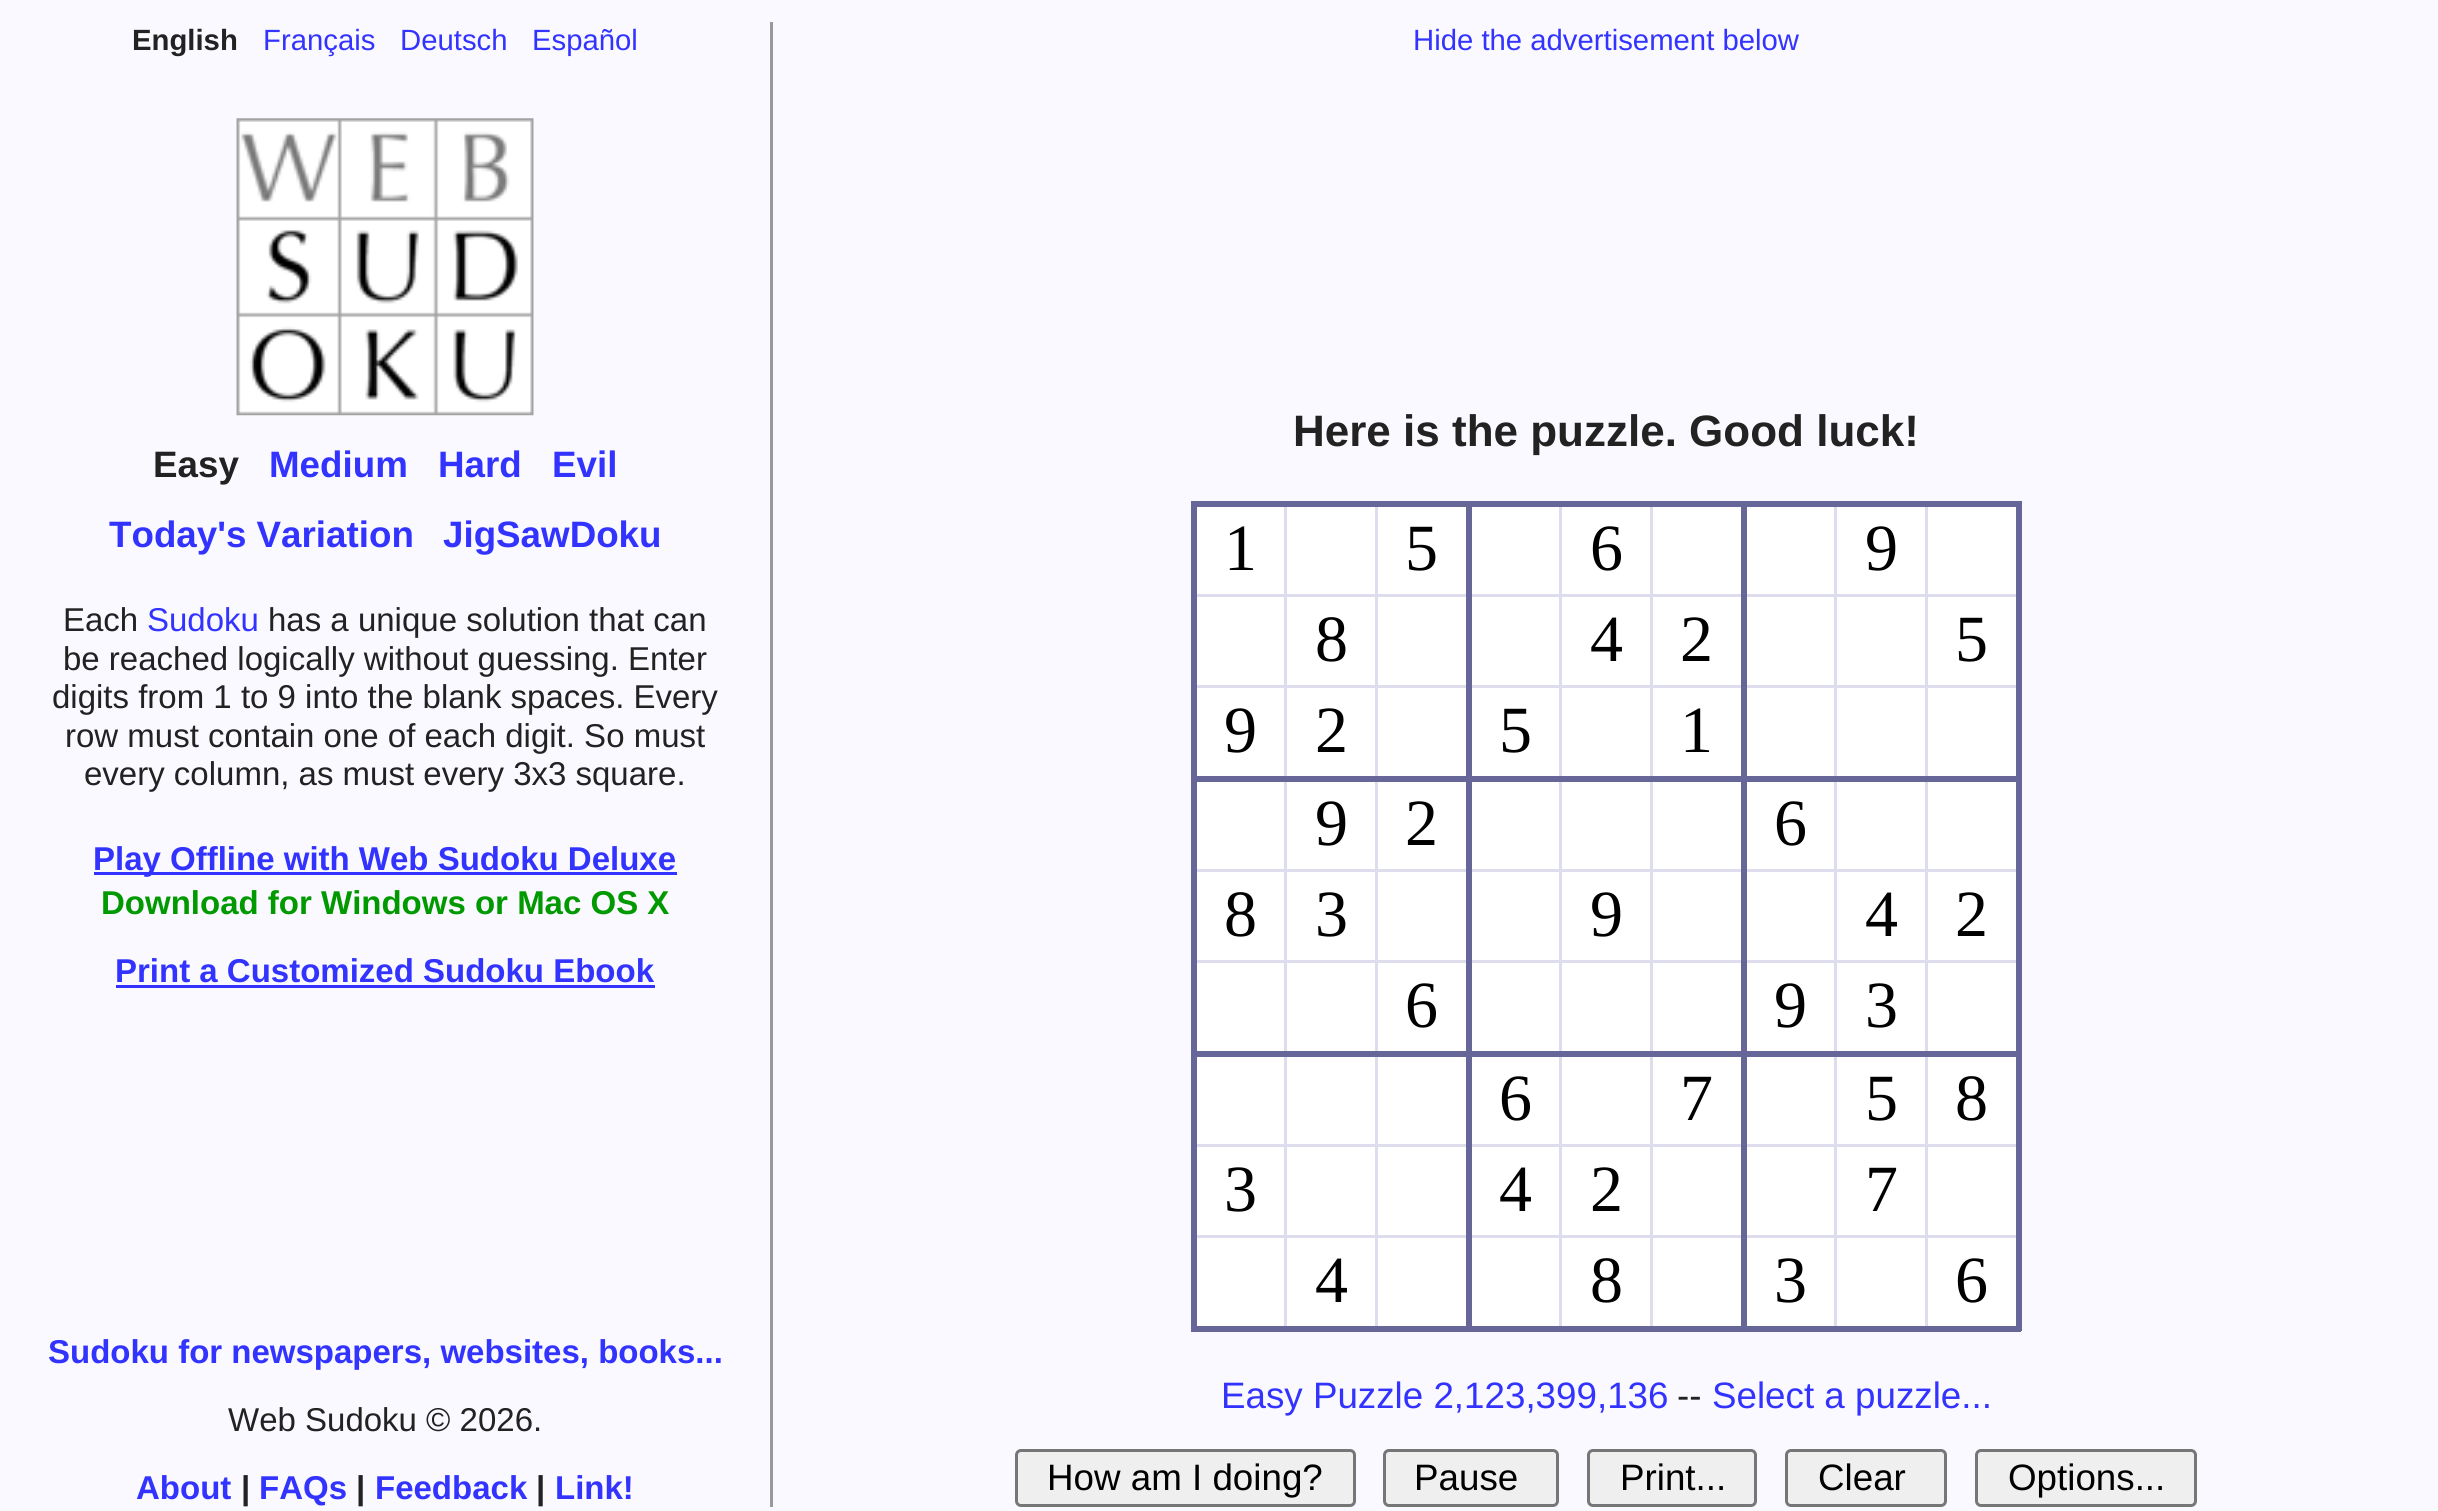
import math
import cairo

surface = cairo.ImageSurface(cairo.Format.RGB24, 2438, 1511)
ctx = cairo.Context(surface)
options = cairo.FontOptions()
options.set_hint_metrics(cairo.HintMetrics.OFF)
options.set_hint_style(cairo.HintStyle.NONE)
ctx.set_font_options(options)
ctx.set_miter_limit(4)


def ink(r, g, b):
    ctx.set_source_rgb(r / 255, g / 255, b / 255)


def write(x, y, s, family, size, color, bold=False, italic=False):
    ctx.select_font_face(family, cairo.FontSlant.ITALIC if italic else cairo.FontSlant.NORMAL, cairo.FontWeight.BOLD if bold else cairo.FontWeight.NORMAL)
    ctx.set_font_size(size)
    ink(*color)
    ctx.move_to(x, y)
    ctx.show_text(s)


def block(x, y, w, h, *color):
    ink(*color)
    ctx.rectangle(x, y, w, h)
    ctx.fill()


def round_path(x, y, w, h, r):
    ctx.new_sub_path()
    for i, (u, v) in enumerate([(x + w - r, y + h - r), (x + r, y + h - r), (x + r, y + r), (x + w - r, y + r)]):
        ctx.arc(u, v, r, i * math.pi / 2, (i + 1) * math.pi / 2)
    ctx.close_path()


def paste(path, x, y, w, h):
    ctx.save()
    ctx.set_source_surface(cairo.ImageSurface.create_from_png(path), x, y)
    ctx.rectangle(x, y, w, h)
    ctx.fill()
    ctx.restore()


s1 = dict(family="Liberation Sans", size=29.3, color=(34, 34, 34), bold=True)
s2 = dict(family="Liberation Sans", size=29.3, color=(51, 51, 255))
s3 = dict(family="Liberation Sans", size=36.75, color=(34, 34, 34), bold=True)
s4 = dict(family="Liberation Sans", size=36.75, color=(51, 51, 255), bold=True)
s5 = dict(family="Liberation Sans", size=33, color=(34, 34, 34))
s6 = dict(family="Liberation Sans", size=33, color=(51, 51, 255))
s7 = dict(family="Liberation Sans", size=33, color=(51, 51, 255), bold=True)
s8 = dict(family="Liberation Sans", size=33, color=(0, 153, 0), bold=True)
s9 = dict(family="Liberation Sans", size=33, color=(34, 34, 34), bold=True)
s10 = dict(family="Liberation Sans", size=44, color=(34, 34, 34), bold=True)
s11 = dict(family="Liberation Serif", size=66, color=(0, 0, 0))
s12 = dict(family="Liberation Sans", size=36.75, color=(51, 51, 255))
s13 = dict(family="Liberation Sans", size=36.75, color=(34, 34, 34))
s14 = dict(family="Liberation Sans", size=36.75, color=(0, 0, 0))

ink(249, 249, 255)
ctx.paint()
write(132, 50, "English", **s1)
write(263, 50, "Français", **s2)
write(400, 50, "Deutsch", **s2)
write(532, 50, "Español", **s2)
paste("pic1.png", 236, 118, 298, 298)
write(153, 477, "Easy", **s3)
write(269, 477, "Medium", **s4)
write(438, 477, "Hard", **s4)
write(552, 477, "Evil", **s4)
write(109, 547, "Today's Variation", **s4)
write(443, 547, "JigSawDoku", **s4)
write(63, 631, "Each", **s5)
write(147, 631, "Sudoku", **s6)
write(268, 631, "has a unique solution that can", **s5)
write(63, 670, "be reached logically without guessing. Enter", **s5)
write(52, 708, "digits from 1 to 9 into the blank spaces. Every", **s5)
write(65, 747, "row must contain one of each digit. So must", **s5)
write(84, 785, "every column, as must every 3x3 square.", **s5)
block(94, 872, 583, 3, 51, 51, 255)
write(93, 870, "Play Offline with Web Sudoku Deluxe", **s7)
write(101, 914, "Download for Windows or Mac OS X", **s8)
write(115, 982, "Print a Customized Sudoku Ebook", **s7)
block(116, 985, 539, 3, 51, 51, 255)
write(48, 1363, "Sudoku for newspapers, websites, books...", **s7)
write(228, 1431, "Web Sudoku © 2026.", **s5)
write(136, 1499, "About", **s7)
write(241, 1499, "|", **s9)
write(259, 1499, "FAQs", **s7)
write(356, 1499, "|", **s9)
write(375, 1499, "Feedback", **s7)
write(536, 1499, "|", **s9)
write(555, 1499, "Link!", **s7)
block(770, 22, 3, 1485, 153, 153, 153)
write(1413, 50, "Hide the advertisement below", **s2)
write(1293, 446, "Here is the puzzle. Good luck!", **s10)
block(1197, 507, 819, 819, 255, 255, 255)
block(1925, 594, 96, 3, 221, 221, 238)
block(1925, 685, 96, 3, 221, 221, 238)
block(1925, 869, 96, 3, 221, 221, 238)
block(1925, 960, 96, 3, 221, 221, 238)
block(1925, 1144, 96, 3, 221, 221, 238)
block(1925, 1235, 96, 3, 221, 221, 238)
block(2016, 501, 6, 830, 102, 102, 153)
block(1925, 1235, 3, 93, 221, 221, 238)
block(1834, 1235, 94, 3, 221, 221, 238)
block(1925, 1144, 3, 94, 221, 221, 238)
block(1834, 1144, 94, 3, 221, 221, 238)
block(1925, 1051, 3, 96, 221, 221, 238)
block(1925, 960, 3, 93, 221, 221, 238)
block(1834, 960, 94, 3, 221, 221, 238)
block(1925, 869, 3, 94, 221, 221, 238)
block(1834, 869, 94, 3, 221, 221, 238)
block(1925, 776, 3, 96, 221, 221, 238)
block(1925, 685, 3, 93, 221, 221, 238)
block(1834, 685, 94, 3, 221, 221, 238)
block(1925, 594, 3, 94, 221, 221, 238)
block(1834, 594, 94, 3, 221, 221, 238)
block(1834, 1235, 3, 93, 221, 221, 238)
block(1650, 1235, 187, 3, 221, 221, 238)
block(1834, 1144, 3, 94, 221, 221, 238)
block(1650, 1144, 187, 3, 221, 221, 238)
block(1834, 1051, 3, 96, 221, 221, 238)
block(1834, 960, 3, 93, 221, 221, 238)
block(1650, 960, 187, 3, 221, 221, 238)
block(1834, 869, 3, 94, 221, 221, 238)
block(1650, 869, 187, 3, 221, 221, 238)
block(1834, 776, 3, 96, 221, 221, 238)
block(1834, 685, 3, 93, 221, 221, 238)
block(1650, 685, 187, 3, 221, 221, 238)
block(1834, 594, 3, 94, 221, 221, 238)
block(1650, 594, 187, 3, 221, 221, 238)
block(1650, 1235, 3, 93, 221, 221, 238)
block(1559, 1235, 94, 3, 221, 221, 238)
block(1650, 1144, 3, 94, 221, 221, 238)
block(1559, 1144, 94, 3, 221, 221, 238)
block(1650, 1051, 3, 96, 221, 221, 238)
block(1650, 960, 3, 93, 221, 221, 238)
block(1559, 960, 94, 3, 221, 221, 238)
block(1650, 869, 3, 94, 221, 221, 238)
block(1559, 869, 94, 3, 221, 221, 238)
block(1650, 776, 3, 96, 221, 221, 238)
block(1650, 685, 3, 93, 221, 221, 238)
block(1559, 685, 94, 3, 221, 221, 238)
block(1650, 594, 3, 94, 221, 221, 238)
block(1559, 594, 94, 3, 221, 221, 238)
block(1650, 503, 3, 94, 221, 221, 238)
block(1925, 503, 3, 94, 221, 221, 238)
block(1834, 503, 3, 94, 221, 221, 238)
block(1741, 501, 280, 6, 102, 102, 153)
block(1559, 1235, 3, 93, 221, 221, 238)
block(1375, 1235, 187, 3, 221, 221, 238)
block(1559, 1144, 3, 94, 221, 221, 238)
block(1375, 1144, 187, 3, 221, 221, 238)
block(1559, 1051, 3, 96, 221, 221, 238)
block(1559, 960, 3, 93, 221, 221, 238)
block(1375, 960, 187, 3, 221, 221, 238)
block(1559, 869, 3, 94, 221, 221, 238)
block(1375, 869, 187, 3, 221, 221, 238)
block(1559, 776, 3, 96, 221, 221, 238)
block(1559, 685, 3, 93, 221, 221, 238)
block(1375, 685, 187, 3, 221, 221, 238)
block(1559, 594, 3, 94, 221, 221, 238)
block(1375, 594, 187, 3, 221, 221, 238)
block(1559, 503, 3, 94, 221, 221, 238)
block(1741, 776, 280, 6, 102, 102, 153)
block(1741, 1051, 280, 6, 102, 102, 153)
block(1741, 1326, 280, 6, 102, 102, 153)
block(1741, 1141, 6, 190, 102, 102, 153)
block(1741, 1051, 6, 96, 102, 102, 153)
block(1466, 1051, 280, 6, 102, 102, 153)
block(1741, 866, 6, 190, 102, 102, 153)
block(1741, 776, 6, 96, 102, 102, 153)
block(1466, 776, 280, 6, 102, 102, 153)
block(1741, 591, 6, 190, 102, 102, 153)
block(1741, 501, 6, 96, 102, 102, 153)
block(1466, 501, 280, 6, 102, 102, 153)
block(1375, 1235, 3, 93, 221, 221, 238)
block(1284, 1235, 94, 3, 221, 221, 238)
block(1375, 1144, 3, 94, 221, 221, 238)
block(1284, 1144, 94, 3, 221, 221, 238)
block(1375, 1051, 3, 96, 221, 221, 238)
block(1375, 960, 3, 93, 221, 221, 238)
block(1284, 960, 94, 3, 221, 221, 238)
block(1284, 1235, 3, 93, 221, 221, 238)
block(1194, 1235, 93, 3, 221, 221, 238)
block(1284, 1144, 3, 94, 221, 221, 238)
block(1194, 1144, 93, 3, 221, 221, 238)
block(1284, 1051, 3, 96, 221, 221, 238)
block(1284, 960, 3, 93, 221, 221, 238)
block(1466, 1326, 280, 6, 102, 102, 153)
block(1466, 1141, 6, 190, 102, 102, 153)
block(1466, 1051, 6, 96, 102, 102, 153)
block(1191, 1051, 280, 6, 102, 102, 153)
block(1466, 866, 6, 190, 102, 102, 153)
block(1466, 776, 6, 96, 102, 102, 153)
block(1375, 869, 3, 94, 221, 221, 238)
block(1284, 869, 94, 3, 221, 221, 238)
block(1375, 776, 3, 96, 221, 221, 238)
block(1375, 685, 3, 93, 221, 221, 238)
block(1284, 685, 94, 3, 221, 221, 238)
block(1194, 960, 93, 3, 221, 221, 238)
block(1284, 869, 3, 94, 221, 221, 238)
block(1194, 869, 93, 3, 221, 221, 238)
block(1284, 776, 3, 96, 221, 221, 238)
block(1284, 685, 3, 93, 221, 221, 238)
block(1191, 776, 280, 6, 102, 102, 153)
block(1466, 591, 6, 190, 102, 102, 153)
block(1466, 501, 6, 96, 102, 102, 153)
block(1375, 594, 3, 94, 221, 221, 238)
block(1284, 594, 94, 3, 221, 221, 238)
block(1194, 685, 93, 3, 221, 221, 238)
block(1284, 594, 3, 94, 221, 221, 238)
block(1194, 594, 93, 3, 221, 221, 238)
block(1284, 503, 3, 94, 221, 221, 238)
block(1375, 503, 3, 94, 221, 221, 238)
block(1191, 501, 280, 6, 102, 102, 153)
block(1191, 1326, 280, 6, 102, 102, 153)
block(1191, 1141, 6, 190, 102, 102, 153)
block(1191, 866, 6, 281, 102, 102, 153)
block(1191, 591, 6, 281, 102, 102, 153)
block(1191, 501, 6, 96, 102, 102, 153)
write(1224, 570, "1", **s11)
write(1405, 570, "5", **s11)
write(1590, 570, "6", **s11)
write(1865, 570, "9", **s11)
write(1315, 661, "8", **s11)
write(1590, 661, "4", **s11)
write(1680, 661, "2", **s11)
write(1955, 661, "5", **s11)
write(1224, 752, "9", **s11)
write(1315, 752, "2", **s11)
write(1499, 752, "5", **s11)
write(1680, 752, "1", **s11)
write(1315, 845, "9", **s11)
write(1405, 845, "2", **s11)
write(1774, 845, "6", **s11)
write(1224, 936, "8", **s11)
write(1315, 936, "3", **s11)
write(1590, 936, "9", **s11)
write(1865, 936, "4", **s11)
write(1955, 936, "2", **s11)
write(1405, 1027, "6", **s11)
write(1774, 1027, "9", **s11)
write(1865, 1027, "3", **s11)
write(1499, 1120, "6", **s11)
write(1680, 1120, "7", **s11)
write(1865, 1120, "5", **s11)
write(1955, 1120, "8", **s11)
write(1224, 1211, "3", **s11)
write(1499, 1211, "4", **s11)
write(1590, 1211, "2", **s11)
write(1865, 1211, "7", **s11)
write(1315, 1302, "4", **s11)
write(1590, 1302, "8", **s11)
write(1774, 1302, "3", **s11)
write(1955, 1302, "6", **s11)
write(1221, 1408, "Easy Puzzle 2,123,399,136", **s12)
write(1677, 1408, "--", **s13)
write(1712, 1408, "Select a puzzle...", **s12)
ink(239, 239, 239)
round_path(1016.5, 1450.5, 338, 55, 4.5)
ctx.fill_preserve()
ink(118, 118, 118)
ctx.set_line_width(3)
ctx.stroke()
write(1047, 1490, "How am I doing?", **s14)
ink(239, 239, 239)
round_path(1384.5, 1450.5, 173, 55, 4.5)
ctx.fill_preserve()
ink(118, 118, 118)
ctx.stroke()
write(1414, 1490, "Pause", **s14)
ink(239, 239, 239)
round_path(1588.5, 1450.5, 167, 55, 4.5)
ctx.fill_preserve()
ink(118, 118, 118)
ctx.stroke()
write(1620, 1490, "Print...", **s14)
ink(239, 239, 239)
round_path(1786.5, 1450.5, 159, 55, 4.5)
ctx.fill_preserve()
ink(118, 118, 118)
ctx.stroke()
write(1818, 1490, "Clear", **s14)
ink(239, 239, 239)
round_path(1976.5, 1450.5, 219, 55, 4.5)
ctx.fill_preserve()
ink(118, 118, 118)
ctx.stroke()
write(2008, 1490, "Options...", **s14)
surface.write_to_png("screenshot.png")
